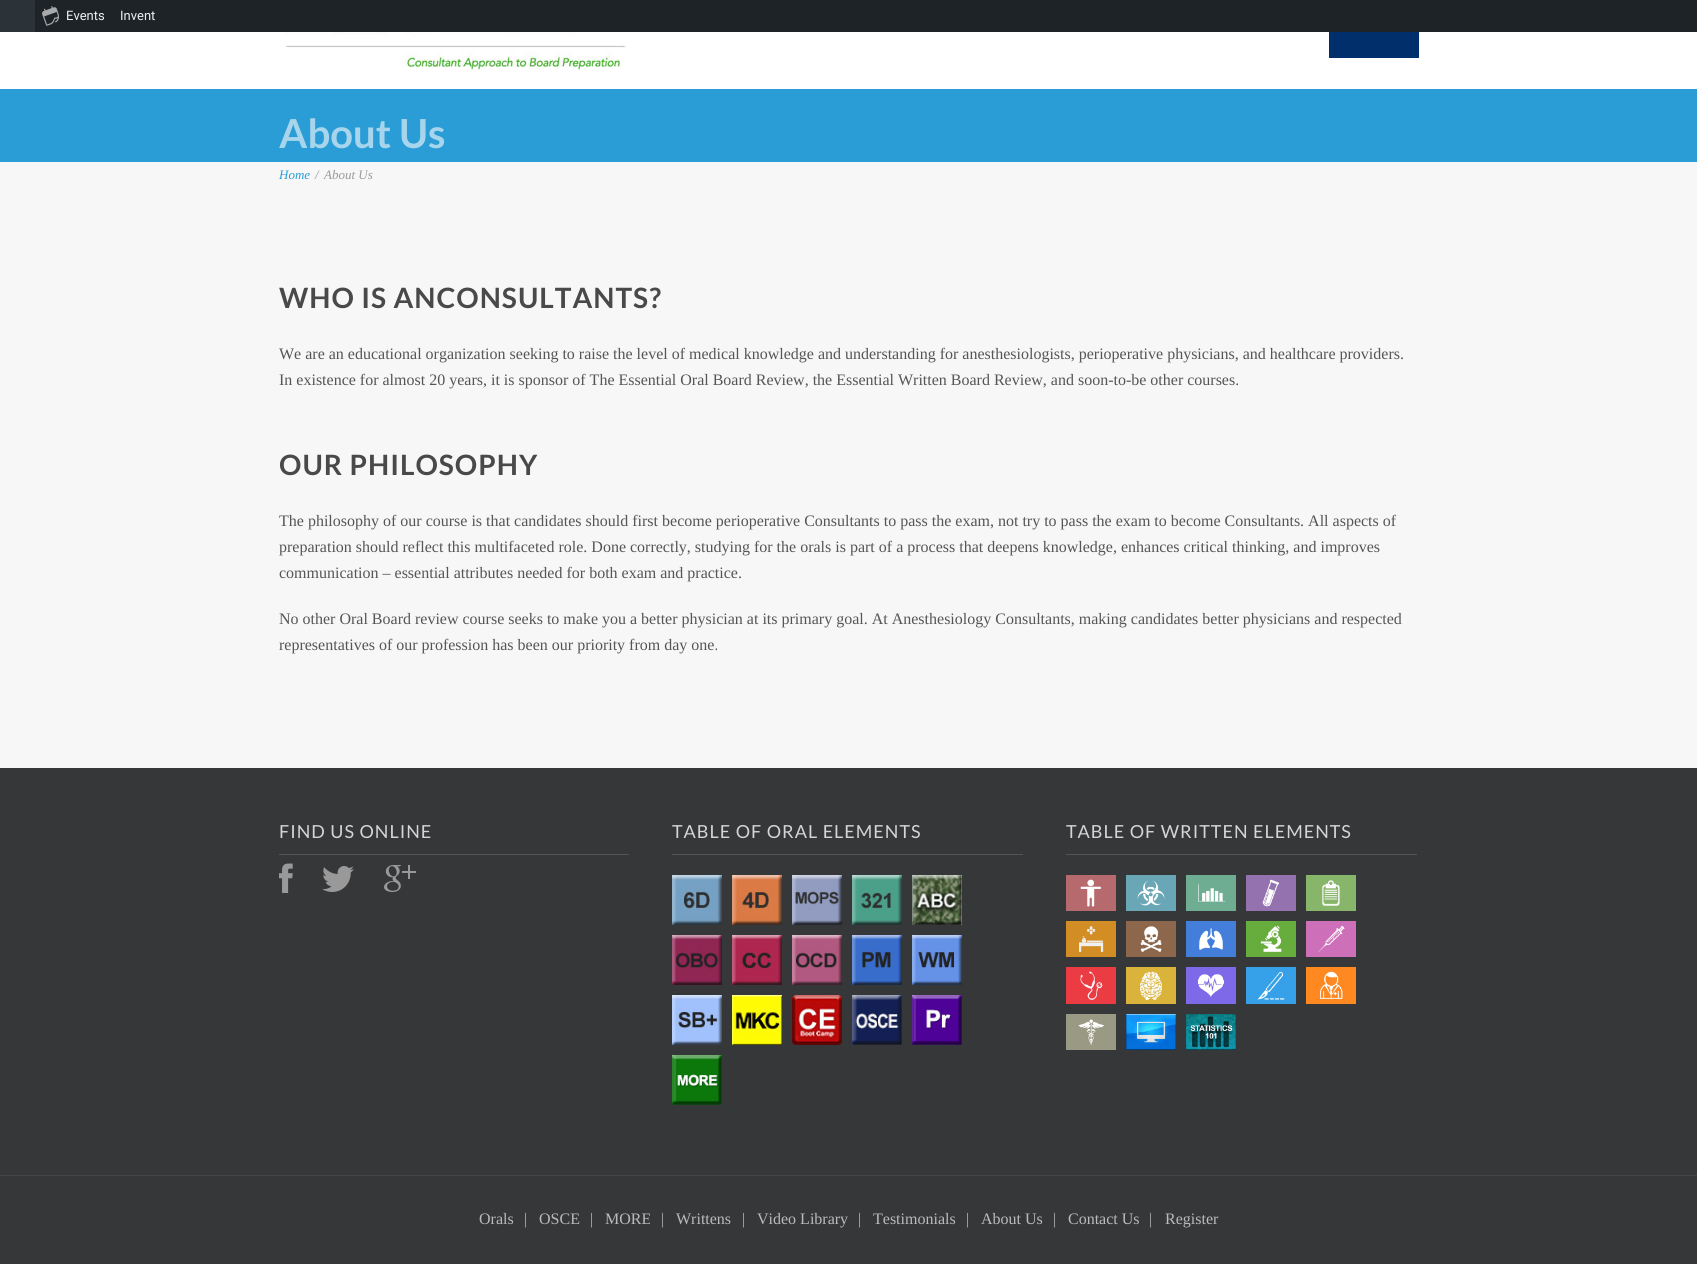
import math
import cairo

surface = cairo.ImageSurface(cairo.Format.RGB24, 1697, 1264)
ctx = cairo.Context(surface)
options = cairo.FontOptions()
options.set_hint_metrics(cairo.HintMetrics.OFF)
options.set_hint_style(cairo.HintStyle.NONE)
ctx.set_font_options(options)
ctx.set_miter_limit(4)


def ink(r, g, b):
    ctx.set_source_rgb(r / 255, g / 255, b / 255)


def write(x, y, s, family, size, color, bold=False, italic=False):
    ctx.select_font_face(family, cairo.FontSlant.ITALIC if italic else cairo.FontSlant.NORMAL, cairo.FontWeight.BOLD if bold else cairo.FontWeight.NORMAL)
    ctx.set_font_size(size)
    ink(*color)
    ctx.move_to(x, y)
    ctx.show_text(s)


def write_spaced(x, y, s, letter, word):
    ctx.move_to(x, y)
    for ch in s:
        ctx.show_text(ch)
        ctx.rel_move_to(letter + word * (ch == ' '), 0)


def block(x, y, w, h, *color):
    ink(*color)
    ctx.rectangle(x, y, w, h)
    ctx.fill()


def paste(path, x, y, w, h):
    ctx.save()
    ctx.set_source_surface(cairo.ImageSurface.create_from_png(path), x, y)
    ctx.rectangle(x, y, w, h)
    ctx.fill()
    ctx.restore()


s1 = dict(family="Roboto", size=13, color=(240, 240, 241))
s2 = dict(family="Lato", size=40, color=(167, 213, 235), bold=True)
s3 = dict(family="Liberation Serif", size=13, color=(42, 157, 214), italic=True)
s4 = dict(family="Liberation Serif", size=13, color=(154, 154, 154), italic=True)
s5 = dict(family="Liberation Serif", size=16, color=(85, 85, 85))
s6 = dict(family="Liberation Serif", size=16, color=(187, 187, 187))
s7 = dict(family="Liberation Serif", size=16, color=(179, 179, 177))

ink(247, 247, 247)
ctx.paint()
block(35, 0, 1662, 32, 29, 35, 39)
block(0, 0, 35, 32, 44, 51, 56)
paste("pic1.png", 42, 6, 17, 20)
write(66, 20, "Events", **s1)
write(120, 20, "Invent", **s1)
block(0, 32, 1697, 57, 255, 255, 255)
paste("pic2.png", 284, 32, 342, 39)
block(1329, 32, 90, 26, 1, 47, 107)
block(0, 89, 1697, 73, 42, 157, 214)
write(279, 148, "About Us", **s2)
write(279, 179, "Home", **s3)
write(315, 179, "/", **s4)
write(324, 179, "About Us", **s4)
ctx.select_font_face("Lato", cairo.FontSlant.NORMAL, cairo.FontWeight.BOLD)
ctx.set_font_size(28)
ink(73, 73, 73)
write_spaced(279, 308, "WHO IS ANCONSULTANTS?", 1, 0)
write(279, 359, "We are an educational organization seeking to raise the level of medical knowledge and understanding for anesthesiologists, perioperative physicians, and healthcare providers.", **s5)
write(279, 385, "In existence for almost 20 years, it is sponsor of The Essential Oral Board Review, the Essential Written Board Review, and soon-to-be other courses.", **s5)
ctx.select_font_face("Lato", cairo.FontSlant.NORMAL, cairo.FontWeight.BOLD)
ctx.set_font_size(28)
ink(73, 73, 73)
write_spaced(279, 475, "OUR PHILOSOPHY", 1, 0)
write(279, 526, "The philosophy of our course is that candidates should first become perioperative Consultants to pass the exam, not try to pass the exam to become Consultants. All aspects of", **s5)
write(279, 552, "preparation should reflect this multifaceted role. Done correctly, studying for the orals is part of a process that deepens knowledge, enhances critical thinking, and improves", **s5)
write(279, 578, "communication – essential attributes needed for both exam and practice.", **s5)
write(279, 624, "No other Oral Board review course seeks to make you a better physician at its primary goal. At Anesthesiology Consultants, making candidates better physicians and respected", **s5)
write(279, 650, "representatives of our profession has been our priority from day one.", **s5)
block(0, 768, 1697, 407, 53, 55, 57)
block(0, 1175, 1697, 1, 70, 70, 71)
block(279, 854, 350, 1, 85, 85, 87)
ctx.select_font_face("Lato")
ctx.set_font_size(18)
ink(213, 213, 213)
write_spaced(279, 838, "FIND US ONLINE", 1, 0)
paste("pic3.png", 279, 863, 14, 30)
paste("pic4.png", 322, 866, 32, 26)
paste("pic5.png", 384, 865, 32, 27)
block(672, 854, 351, 1, 85, 85, 87)
ink(213, 213, 213)
write_spaced(672, 838, "TABLE OF ORAL ELEMENTS", 1, 0)
paste("pic6.png", 672, 875, 50, 50)
paste("pic7.png", 732, 875, 50, 50)
paste("pic8.png", 792, 875, 50, 50)
paste("pic9.png", 852, 875, 50, 50)
paste("pic10.png", 912, 875, 50, 50)
paste("pic11.png", 672, 935, 50, 50)
paste("pic12.png", 732, 935, 50, 50)
paste("pic13.png", 792, 935, 50, 50)
paste("pic14.png", 852, 935, 50, 50)
paste("pic15.png", 912, 935, 50, 50)
paste("pic16.png", 672, 995, 50, 50)
paste("pic17.png", 732, 995, 50, 50)
paste("pic18.png", 792, 995, 50, 50)
paste("pic19.png", 852, 995, 50, 50)
paste("pic20.png", 912, 995, 50, 50)
paste("pic21.png", 672, 1055, 50, 50)
block(1066, 854, 351, 1, 85, 85, 87)
ink(213, 213, 213)
write_spaced(1066, 838, "TABLE OF WRITTEN ELEMENTS", 1, 0)
paste("pic22.png", 1066, 875, 50, 36)
paste("pic23.png", 1126, 875, 50, 36)
paste("pic24.png", 1186, 875, 50, 36)
paste("pic25.png", 1246, 875, 50, 36)
paste("pic26.png", 1306, 875, 50, 36)
paste("pic27.png", 1066, 921, 50, 36)
paste("pic28.png", 1126, 921, 50, 36)
paste("pic29.png", 1186, 921, 50, 36)
paste("pic30.png", 1246, 921, 50, 36)
paste("pic31.png", 1306, 921, 50, 36)
paste("pic32.png", 1066, 967, 50, 37)
paste("pic33.png", 1126, 967, 50, 37)
paste("pic34.png", 1186, 967, 50, 37)
paste("pic35.png", 1246, 967, 50, 37)
paste("pic36.png", 1306, 967, 50, 37)
paste("pic37.png", 1066, 1014, 50, 36)
paste("pic38.png", 1126, 1014, 50, 36)
paste("pic39.png", 1186, 1014, 50, 36)
block(0, 1176, 1697, 88, 53, 55, 57)
write(479, 1224, "Orals", **s6)
write(524, 1224, "|", **s7)
write(539, 1224, "OSCE", **s6)
write(590, 1224, "|", **s7)
write(605, 1224, "MORE", **s6)
write(661, 1224, "|", **s7)
write(676, 1224, "Writtens", **s6)
write(742, 1224, "|", **s7)
write(757, 1224, "Video Library", **s6)
write(858, 1224, "|", **s7)
write(873, 1224, "Testimonials", **s6)
write(966, 1224, "|", **s7)
write(981, 1224, "About Us", **s6)
write(1053, 1224, "|", **s7)
write(1068, 1224, "Contact Us", **s6)
write(1149, 1224, "|", **s7)
write(1165, 1224, "Register", **s6)
surface.write_to_png("screenshot.png")
